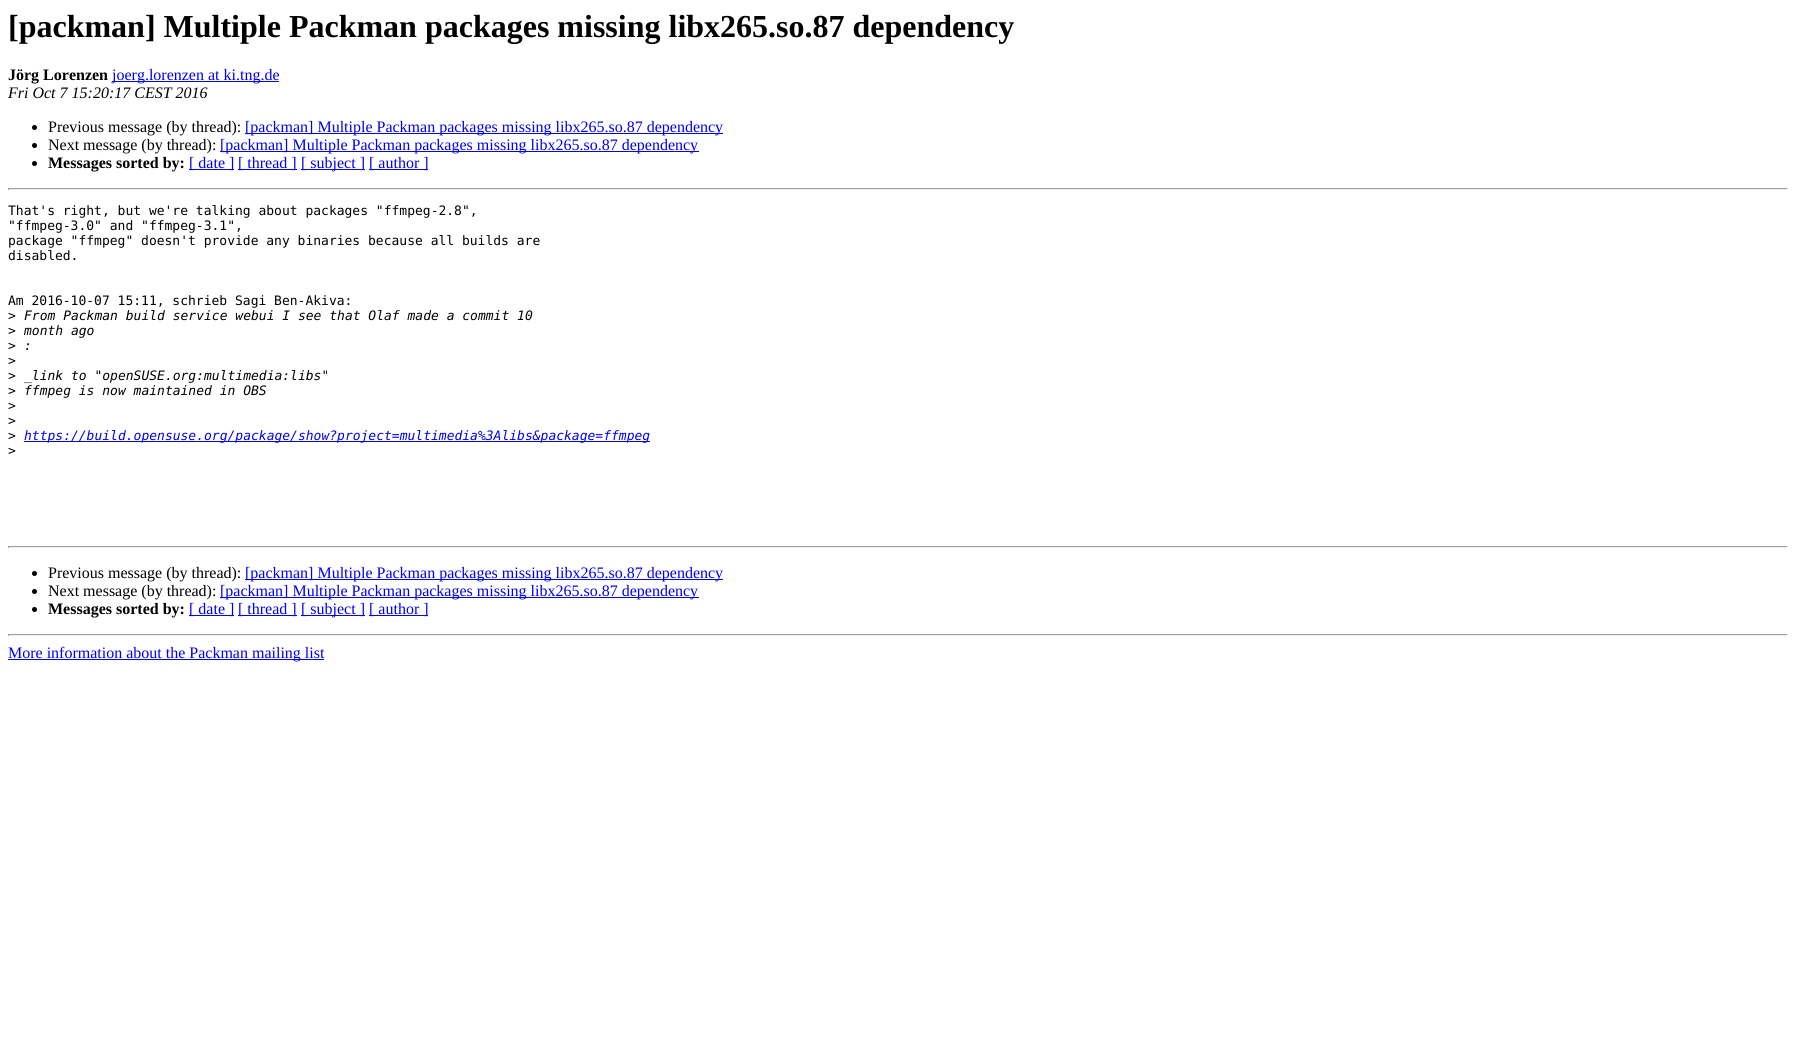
import math
import cairo

surface = cairo.ImageSurface(cairo.Format.RGB24, 1796, 1039)
ctx = cairo.Context(surface)
options = cairo.FontOptions()
options.set_hint_metrics(cairo.HintMetrics.OFF)
options.set_hint_style(cairo.HintStyle.NONE)
ctx.set_font_options(options)
ctx.set_miter_limit(4)


def ink(r, g, b):
    ctx.set_source_rgb(r / 255, g / 255, b / 255)


def write(x, y, s, family, size, color, bold=False, italic=False):
    ctx.select_font_face(family, cairo.FontSlant.ITALIC if italic else cairo.FontSlant.NORMAL, cairo.FontWeight.BOLD if bold else cairo.FontWeight.NORMAL)
    ctx.set_font_size(size)
    ink(*color)
    ctx.move_to(x, y)
    ctx.show_text(s)


def block(x, y, w, h, *color):
    ink(*color)
    ctx.rectangle(x, y, w, h)
    ctx.fill()


s1 = dict(family="Liberation Serif", size=32, color=(0, 0, 0), bold=True)
s2 = dict(family="Liberation Serif", size=16, color=(0, 0, 0), bold=True)
s3 = dict(family="Liberation Serif", size=16, color=(0, 0, 238))
s4 = dict(family="Liberation Serif", size=16, color=(0, 0, 0), italic=True)
s5 = dict(family="Liberation Serif", size=16, color=(0, 0, 0))
s6 = dict(family="DejaVu Sans Mono", size=13, color=(0, 0, 0))
s7 = dict(family="DejaVu Sans Mono", size=13, color=(0, 0, 0), italic=True)
s8 = dict(family="DejaVu Sans Mono", size=13, color=(0, 0, 238), italic=True)

ink(255, 255, 255)
ctx.paint()
write(8, 37, "[packman] Multiple Packman packages missing libx265.so.87 dependency", **s1)
write(8, 80, "Jörg Lorenzen", **s2)
block(112, 81, 167, 1, 0, 0, 238)
write(112, 80, "joerg.lorenzen at ki.tng.de", **s3)
write(8, 98, "Fri Oct 7 15:20:17 CEST 2016", **s4)
ctx.new_path()
ctx.arc(34.5, 127.5, 2.5, 0, 2 * math.pi)
ctx.fill()
write(48, 132, "Previous message (by thread):", **s5)
block(245, 133, 478, 1, 0, 0, 238)
write(245, 132, "[packman] Multiple Packman packages missing libx265.so.87 dependency", **s3)
ink(0, 0, 0)
ctx.new_path()
ctx.arc(34.5, 145.5, 2.5, 0, 2 * math.pi)
ctx.fill()
write(48, 150, "Next message (by thread):", **s5)
block(220, 151, 479, 1, 0, 0, 238)
write(220, 150, "[packman] Multiple Packman packages missing libx265.so.87 dependency", **s3)
ink(0, 0, 0)
ctx.new_path()
ctx.arc(34.5, 163.5, 2.5, 0, 2 * math.pi)
ctx.fill()
write(48, 168, "Messages sorted by:", **s2)
block(189, 169, 45, 1, 0, 0, 238)
write(189, 168, "[ date ]", **s3)
block(238, 169, 59, 1, 0, 0, 238)
write(238, 168, "[ thread ]", **s3)
block(301, 169, 64, 1, 0, 0, 238)
write(301, 168, "[ subject ]", **s3)
block(369, 169, 59, 1, 0, 0, 238)
write(369, 168, "[ author ]", **s3)
block(8, 188, 1780, 1, 159, 159, 159)
block(1787, 188, 1, 2, 238, 238, 238)
block(8, 189, 1780, 1, 238, 238, 238)
block(8, 188, 1, 2, 159, 159, 159)
write(8, 215, "That's right, but we're talking about packages \"ffmpeg-2.8\",", **s6)
write(8, 230, "\"ffmpeg-3.0\" and \"ffmpeg-3.1\",", **s6)
write(8, 245, "package \"ffmpeg\" doesn't provide any binaries because all builds are", **s6)
write(8, 260, "disabled.", **s6)
write(8, 305, "Am 2016-10-07 15:11, schrieb Sagi Ben-Akiva:", **s6)
write(8, 320, ">", **s6)
write(24, 320, "From Packman build service webui I see that Olaf made a commit 10", **s7)
write(8, 335, ">", **s6)
write(24, 335, "month ago", **s7)
write(8, 350, ">", **s6)
write(24, 350, ":", **s7)
write(8, 365, ">", **s6)
write(8, 380, ">", **s6)
write(24, 380, "_link to \"openSUSE.org:multimedia:libs\"", **s7)
write(8, 395, ">", **s6)
write(24, 395, "ffmpeg is now maintained in OBS", **s7)
write(8, 410, ">", **s6)
write(8, 425, ">", **s6)
write(8, 440, ">", **s6)
block(24, 441, 626, 1, 0, 0, 238)
write(24, 440, "https://build.opensuse.org/package/show?project=multimedia%3Alibs&package=ffmpeg", **s8)
write(8, 455, ">", **s6)
block(8, 546, 1780, 1, 159, 159, 159)
block(1787, 546, 1, 2, 238, 238, 238)
block(8, 547, 1780, 1, 238, 238, 238)
block(8, 546, 1, 2, 159, 159, 159)
ink(0, 0, 0)
ctx.new_path()
ctx.arc(34.5, 573.5, 2.5, 0, 2 * math.pi)
ctx.fill()
write(48, 578, "Previous message (by thread):", **s5)
block(245, 579, 478, 1, 0, 0, 238)
write(245, 578, "[packman] Multiple Packman packages missing libx265.so.87 dependency", **s3)
ink(0, 0, 0)
ctx.new_path()
ctx.arc(34.5, 591.5, 2.5, 0, 2 * math.pi)
ctx.fill()
write(48, 596, "Next message (by thread):", **s5)
block(220, 597, 479, 1, 0, 0, 238)
write(220, 596, "[packman] Multiple Packman packages missing libx265.so.87 dependency", **s3)
ink(0, 0, 0)
ctx.new_path()
ctx.arc(34.5, 609.5, 2.5, 0, 2 * math.pi)
ctx.fill()
write(48, 614, "Messages sorted by:", **s2)
block(189, 615, 45, 1, 0, 0, 238)
write(189, 614, "[ date ]", **s3)
block(238, 615, 59, 1, 0, 0, 238)
write(238, 614, "[ thread ]", **s3)
block(301, 615, 64, 1, 0, 0, 238)
write(301, 614, "[ subject ]", **s3)
block(369, 615, 59, 1, 0, 0, 238)
write(369, 614, "[ author ]", **s3)
block(8, 634, 1780, 1, 159, 159, 159)
block(1787, 634, 1, 2, 238, 238, 238)
block(8, 635, 1780, 1, 238, 238, 238)
block(8, 634, 1, 2, 159, 159, 159)
block(8, 659, 316, 1, 0, 0, 238)
write(8, 658, "More information about the Packman mailing list", **s3)
surface.write_to_png("screenshot.png")
